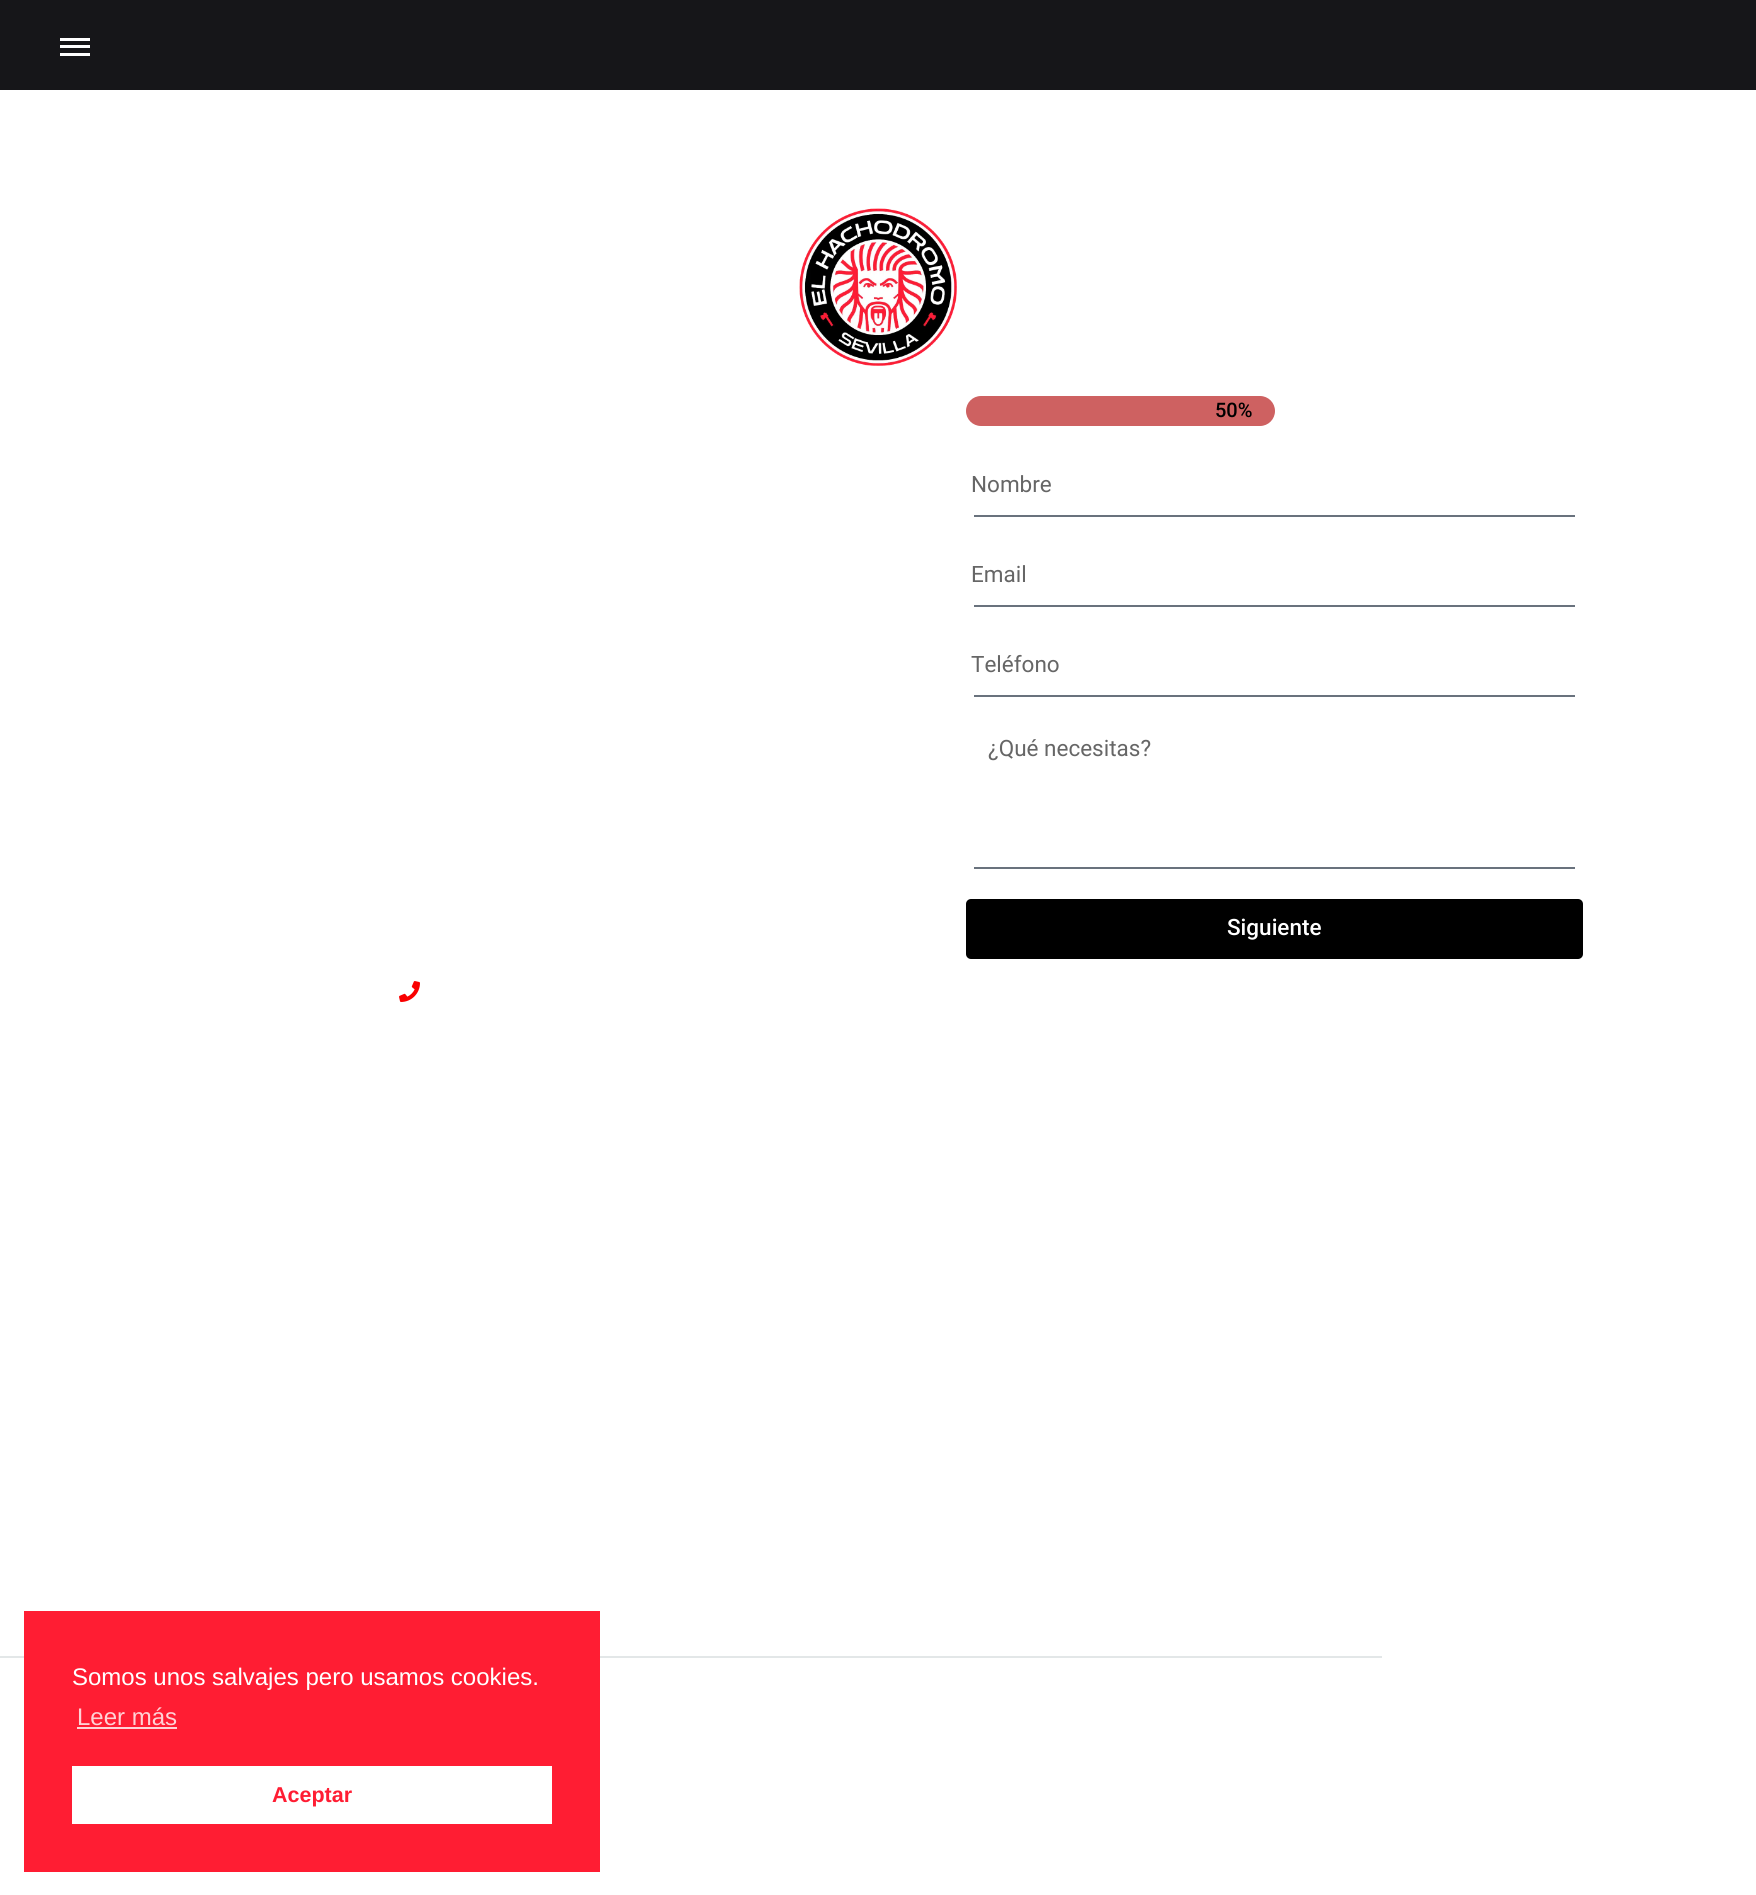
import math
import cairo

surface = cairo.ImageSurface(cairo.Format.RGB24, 1756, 1895)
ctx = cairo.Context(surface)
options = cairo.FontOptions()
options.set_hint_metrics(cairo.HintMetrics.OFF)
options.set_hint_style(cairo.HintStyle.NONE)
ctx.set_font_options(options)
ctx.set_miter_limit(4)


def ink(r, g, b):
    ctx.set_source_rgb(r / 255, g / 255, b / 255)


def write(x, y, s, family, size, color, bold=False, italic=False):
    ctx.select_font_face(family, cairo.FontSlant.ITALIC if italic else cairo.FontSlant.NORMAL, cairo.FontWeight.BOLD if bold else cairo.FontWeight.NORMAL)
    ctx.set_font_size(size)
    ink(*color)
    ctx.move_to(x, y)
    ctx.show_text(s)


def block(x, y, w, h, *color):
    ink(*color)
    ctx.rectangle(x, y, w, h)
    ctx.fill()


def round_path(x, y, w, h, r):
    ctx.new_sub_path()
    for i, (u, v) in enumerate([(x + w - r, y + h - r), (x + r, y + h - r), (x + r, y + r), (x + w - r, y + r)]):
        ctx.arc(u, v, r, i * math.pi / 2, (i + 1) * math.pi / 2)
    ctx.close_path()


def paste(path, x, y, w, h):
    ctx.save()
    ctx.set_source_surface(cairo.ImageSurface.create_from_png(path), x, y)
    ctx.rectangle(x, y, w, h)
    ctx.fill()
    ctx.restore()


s1 = dict(family="Roboto Medium", size=20, color=(0, 0, 0))
s2 = dict(family="Roboto", size=22.5, color=(102, 102, 102))
s3 = dict(family="Roboto Medium", size=22.5, color=(255, 255, 255))
s4 = dict(family="Liberation Sans", size=24, color=(255, 255, 255))
s5 = dict(family="Liberation Sans", size=24, color=(255, 210, 214))
s6 = dict(family="Liberation Sans", size=21.5, color=(255, 29, 51), bold=True)

ink(255, 255, 255)
ctx.paint()
block(0, 0, 1756, 90, 22, 22, 25)
block(60, 45, 30, 3, 255, 255, 255)
block(60, 38, 30, 3, 255, 255, 255)
block(60, 53, 30, 3, 255, 255, 255)
paste("pic1.png", 799, 208, 158, 158)
ink(206, 97, 97)
round_path(966, 396, 309, 30, 15)
ctx.fill()
write(1215, 417, "50%", **s1)
block(974, 515, 601, 2, 105, 114, 125)
write(971, 492, "Nombre", **s2)
block(974, 605, 601, 2, 105, 114, 125)
write(971, 582, "Email", **s2)
block(974, 695, 601, 2, 105, 114, 125)
write(971, 672, "Teléfono", **s2)
block(974, 867, 601, 2, 105, 114, 125)
write(988, 756, "¿Qué necesitas?", **s2)
ink(0, 0, 0)
round_path(966, 899, 617, 60, 5)
ctx.fill()
write(1227, 935, "Siguiente", **s3)
paste("pic2.png", 399, 981, 21, 21)
block(0, 1656, 1382, 2, 227, 231, 232)
block(24, 1611, 576, 261, 255, 29, 51)
write(72, 1685, "Somos unos salvajes pero usamos cookies.", **s4)
write(77, 1725, "Leer más", **s5)
block(77, 1727, 100, 2, 255, 210, 214)
block(72, 1766, 480, 58, 255, 255, 255)
write(272, 1802, "Aceptar", **s6)
surface.write_to_png("screenshot.png")
